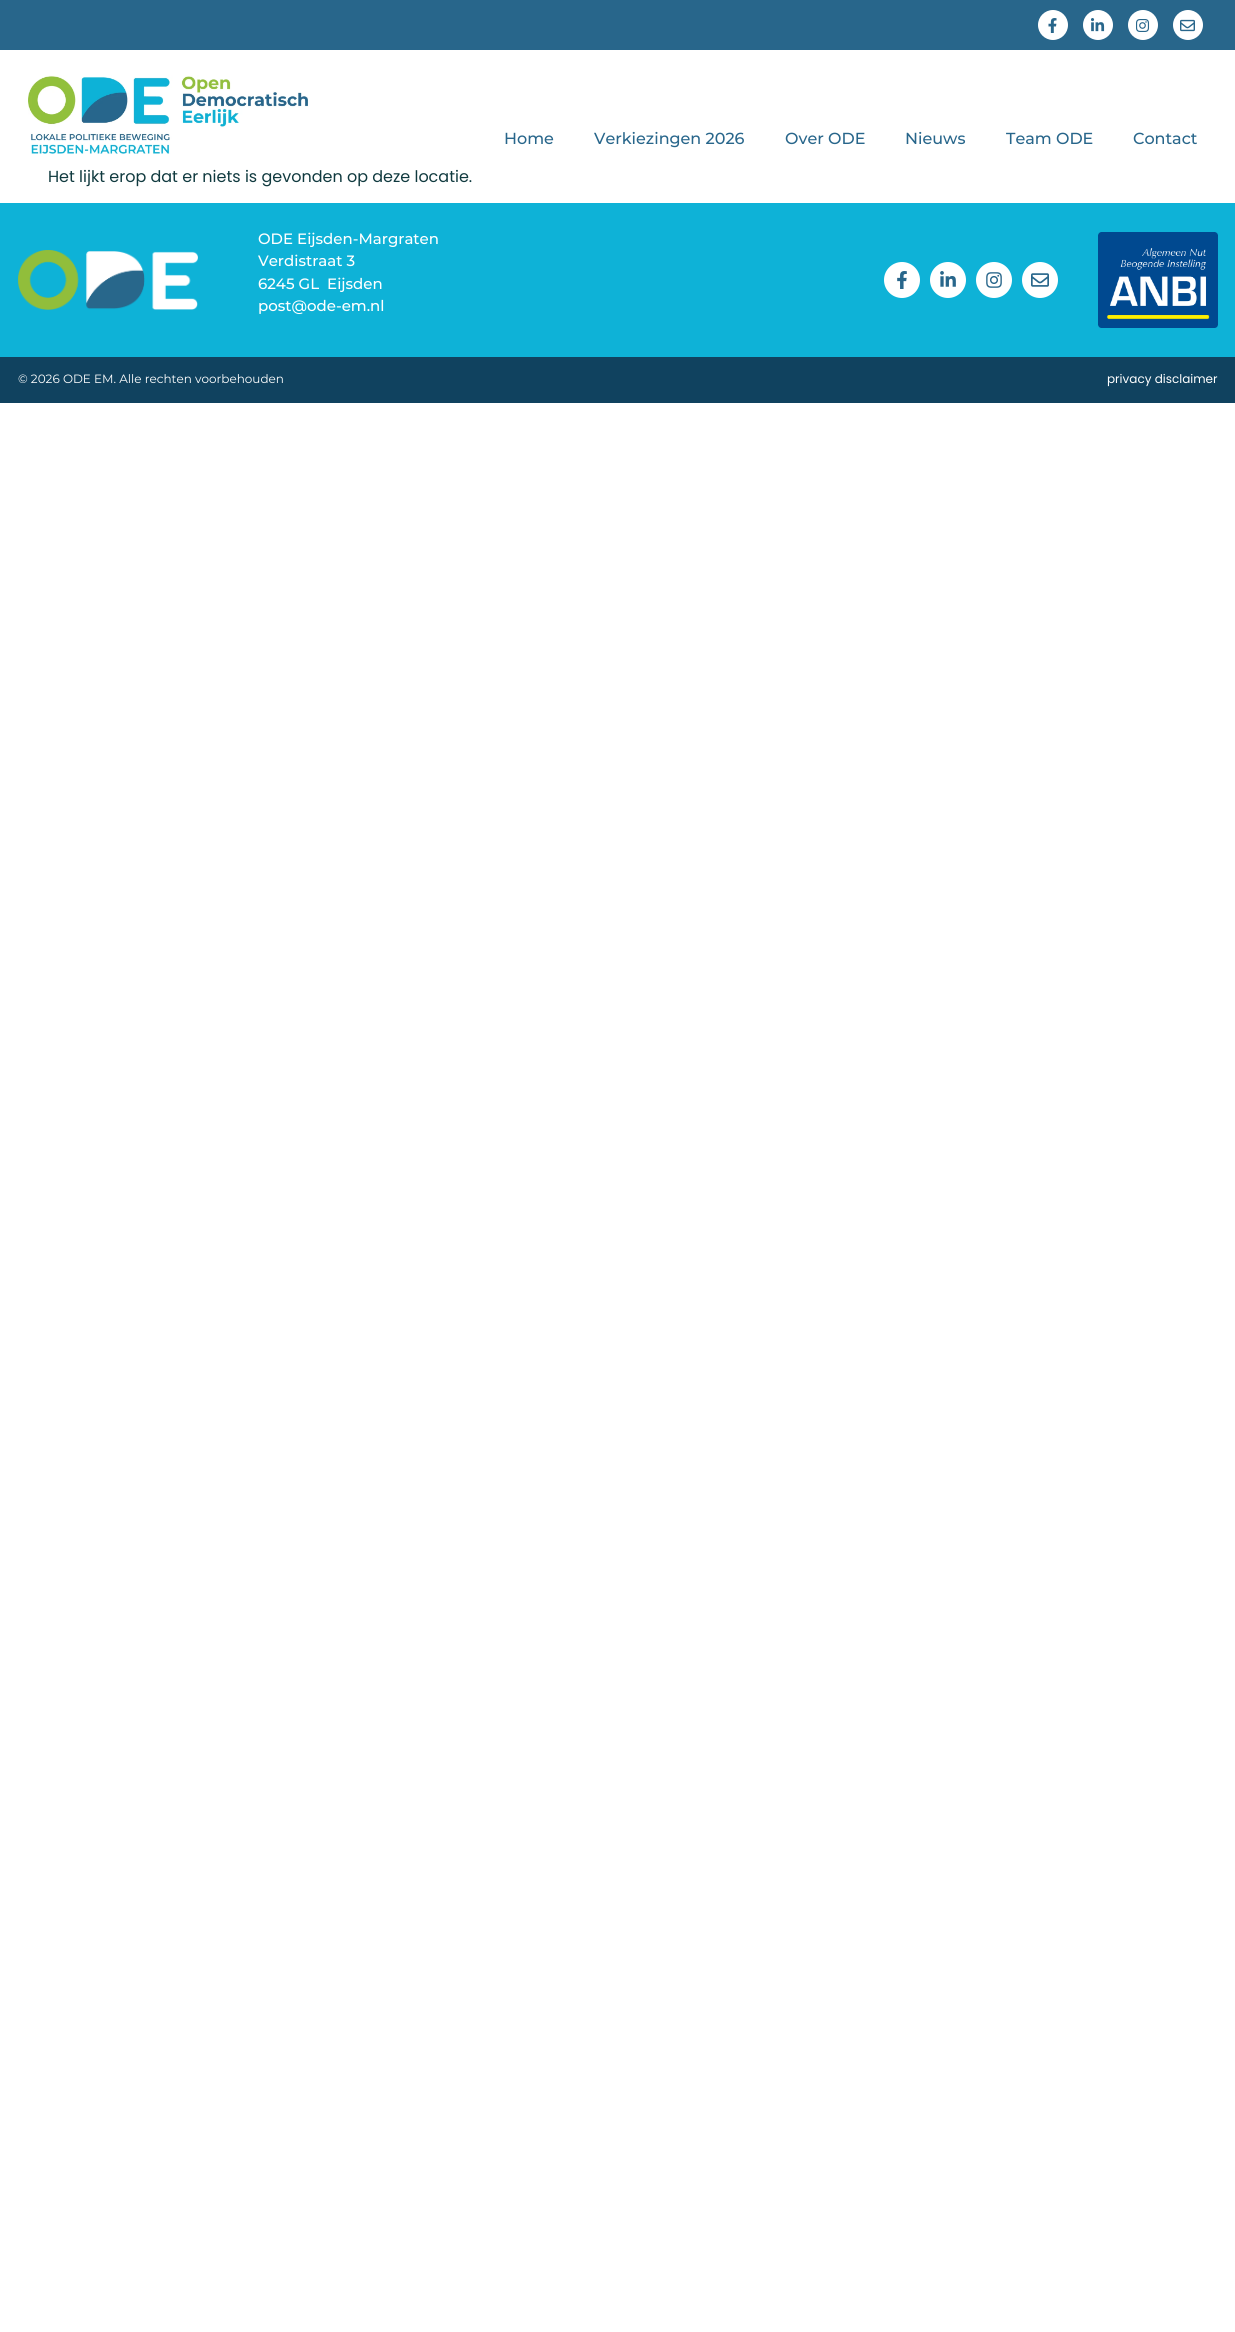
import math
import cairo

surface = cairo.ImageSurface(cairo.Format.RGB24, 1235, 2332)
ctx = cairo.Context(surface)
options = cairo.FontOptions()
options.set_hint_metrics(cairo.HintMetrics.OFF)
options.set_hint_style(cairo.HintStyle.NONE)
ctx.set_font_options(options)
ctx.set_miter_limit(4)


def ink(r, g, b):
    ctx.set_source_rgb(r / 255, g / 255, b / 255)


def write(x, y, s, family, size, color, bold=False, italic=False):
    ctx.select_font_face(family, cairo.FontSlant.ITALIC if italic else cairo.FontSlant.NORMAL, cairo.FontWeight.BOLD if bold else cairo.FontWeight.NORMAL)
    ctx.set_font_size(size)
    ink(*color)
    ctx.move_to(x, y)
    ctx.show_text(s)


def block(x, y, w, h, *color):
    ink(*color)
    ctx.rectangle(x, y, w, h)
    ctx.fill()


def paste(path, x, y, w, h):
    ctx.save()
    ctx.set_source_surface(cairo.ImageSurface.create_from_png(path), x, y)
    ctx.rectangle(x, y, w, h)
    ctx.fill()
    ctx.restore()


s1 = dict(family="Montserrat Medium", size=16, color=(40, 102, 139))
s2 = dict(family="Poppins", size=16, color=(16, 58, 63))
s3 = dict(family="Montserrat Medium", size=15, color=(255, 255, 255))
s4 = dict(family="Montserrat", size=12, color=(255, 255, 255))
s5 = dict(family="Poppins", size=12, color=(255, 255, 255))

ink(255, 255, 255)
ctx.paint()
block(0, 0, 1235, 50, 40, 102, 139)
ink(255, 255, 255)
ctx.arc(1053, 25, 15, 0, 2 * math.pi)
ctx.fill()
paste("pic1.png", 1048, 18, 9, 15)
ctx.arc(1098, 25, 15, 0, 2 * math.pi)
ctx.fill()
paste("pic2.png", 1091, 18, 14, 14)
ctx.arc(1143, 25, 15, 0, 2 * math.pi)
ctx.fill()
paste("pic3.png", 1136, 19, 14, 13)
ctx.arc(1188, 25, 15, 0, 2 * math.pi)
ctx.fill()
paste("pic4.png", 1180, 19, 15, 13)
paste("pic5.png", 28, 75, 280, 79)
write(504, 144, "Home", **s1)
write(594, 144, "Verkiezingen 2026", **s1)
write(785, 144, "Over ODE", **s1)
write(905, 144, "Nieuws", **s1)
write(1006, 144, "Team ODE", **s1)
write(1133, 144, "Contact", **s1)
write(48, 182, "Het lijkt erop dat er niets is gevonden op deze locatie.", **s2)
block(0, 203, 1235, 154, 14, 178, 215)
paste("pic6.png", 18, 250, 180, 60)
write(258, 244, "ODE Eijsden-Margraten", **s3)
write(258, 266, "Verdistraat 3", **s3)
write(258, 289, "6245 GL  Eijsden", **s3)
write(258, 311, "post@ode-em.nl", **s3)
ctx.new_path()
ctx.arc(902, 280, 18, 0, 2 * math.pi)
ctx.fill()
paste("pic7.png", 897, 271, 10, 18)
ctx.arc(948, 280, 18, 0, 2 * math.pi)
ctx.fill()
paste("pic8.png", 940, 271, 16, 16)
ctx.arc(994, 280, 18, 0, 2 * math.pi)
ctx.fill()
paste("pic9.png", 986, 272, 16, 16)
ctx.arc(1040, 280, 18, 0, 2 * math.pi)
ctx.fill()
paste("pic10.png", 1031, 273, 18, 14)
paste("pic11.png", 1098, 232, 120, 96)
block(0, 357, 1235, 46, 16, 66, 95)
write(18, 383, "© 2026 ODE EM. Alle rechten voorbehouden", **s4)
write(1107, 383, "privacy disclaimer", **s5)
surface.write_to_png("screenshot.png")
